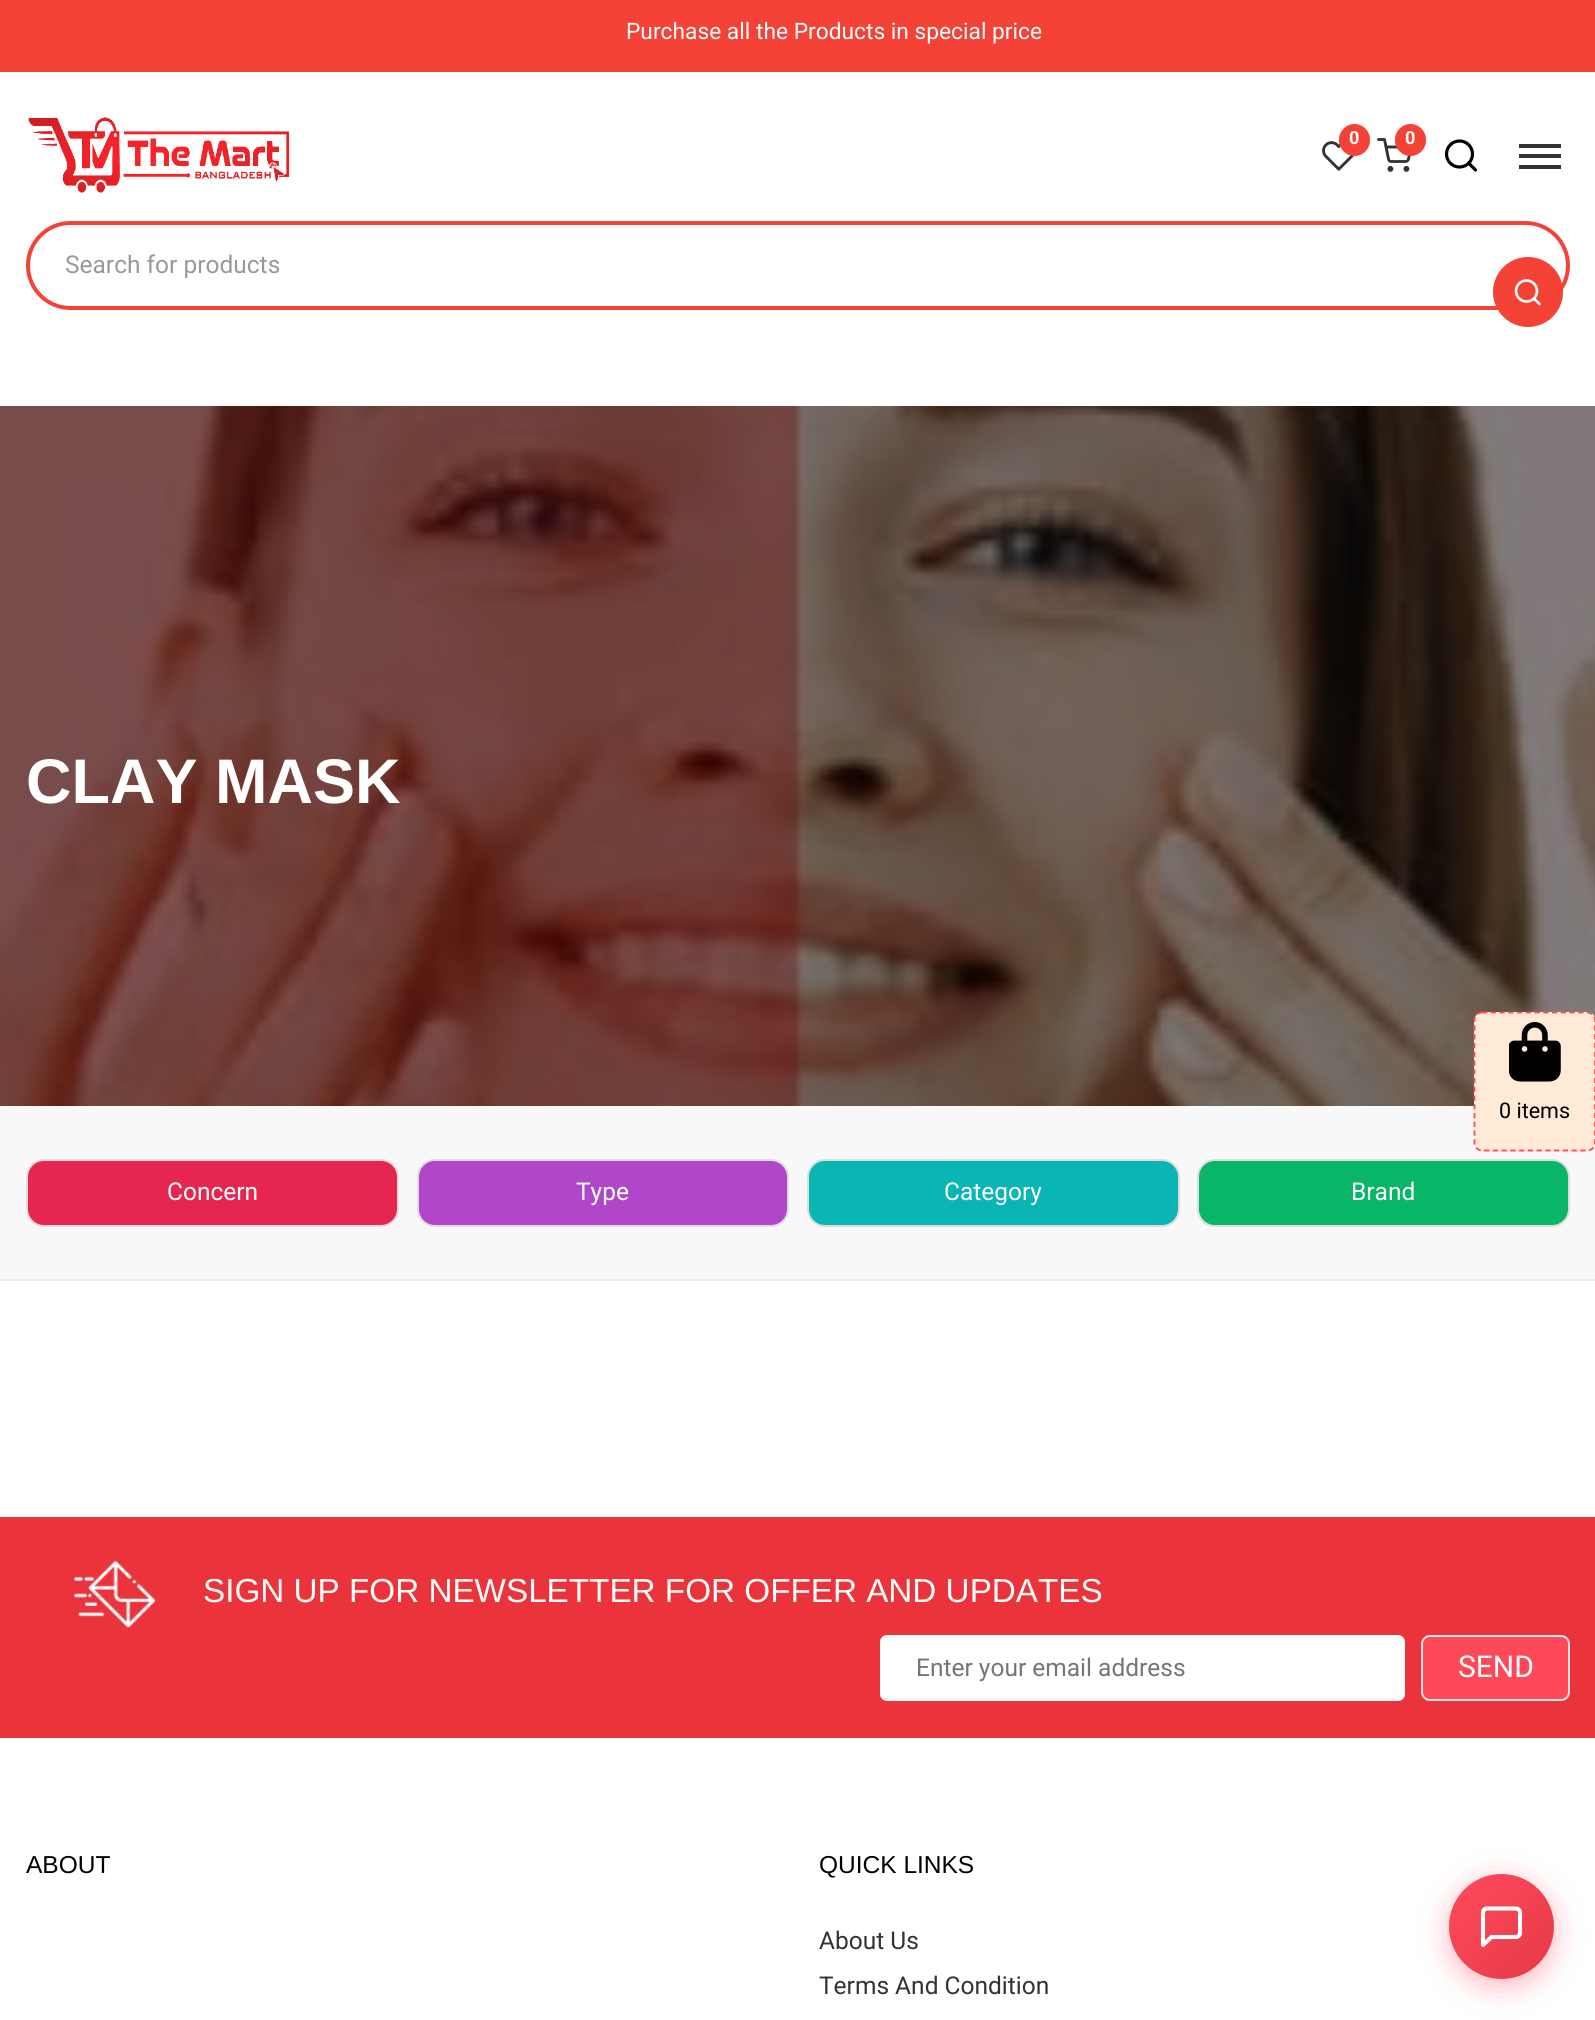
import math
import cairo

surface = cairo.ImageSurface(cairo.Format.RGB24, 1595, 2020)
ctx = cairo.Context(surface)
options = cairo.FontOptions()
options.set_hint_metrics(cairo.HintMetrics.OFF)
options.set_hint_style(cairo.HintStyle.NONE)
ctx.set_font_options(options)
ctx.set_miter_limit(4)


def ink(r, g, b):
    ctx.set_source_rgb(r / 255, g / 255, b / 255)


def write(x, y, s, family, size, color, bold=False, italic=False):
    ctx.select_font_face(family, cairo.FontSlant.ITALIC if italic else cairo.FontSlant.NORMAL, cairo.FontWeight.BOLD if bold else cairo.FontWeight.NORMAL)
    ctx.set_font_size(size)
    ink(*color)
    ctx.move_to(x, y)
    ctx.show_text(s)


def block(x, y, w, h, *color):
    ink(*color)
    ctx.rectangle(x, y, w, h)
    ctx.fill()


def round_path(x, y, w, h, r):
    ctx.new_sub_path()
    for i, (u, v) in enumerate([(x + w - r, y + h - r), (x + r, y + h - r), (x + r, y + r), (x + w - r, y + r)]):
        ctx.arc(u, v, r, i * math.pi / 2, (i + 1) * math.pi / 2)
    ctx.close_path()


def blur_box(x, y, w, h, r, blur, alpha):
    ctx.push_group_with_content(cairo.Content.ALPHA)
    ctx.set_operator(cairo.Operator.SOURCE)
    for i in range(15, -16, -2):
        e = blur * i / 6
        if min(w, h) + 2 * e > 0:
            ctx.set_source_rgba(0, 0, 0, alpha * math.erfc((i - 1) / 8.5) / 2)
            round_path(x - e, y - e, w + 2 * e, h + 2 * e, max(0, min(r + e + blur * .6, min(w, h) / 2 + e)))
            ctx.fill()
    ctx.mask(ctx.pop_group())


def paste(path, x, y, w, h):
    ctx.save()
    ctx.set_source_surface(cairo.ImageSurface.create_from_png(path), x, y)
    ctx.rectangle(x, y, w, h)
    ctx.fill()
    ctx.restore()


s1 = dict(family="Roboto", size=22.75, color=(255, 255, 255))
s2 = dict(family="Roboto", size=18, color=(255, 255, 255), bold=True)
s3 = dict(family="Roboto", size=24.5, color=(153, 153, 153))
s4 = dict(family="Liberation Sans", size=63, color=(255, 255, 255), bold=True)
s5 = dict(family="Roboto", size=24.5, color=(255, 255, 255))
s6 = dict(family="Liberation Sans", size=33.25, color=(255, 255, 255))
s7 = dict(family="Roboto", size=24.5, color=(117, 117, 117))
s8 = dict(family="Roboto", size=30, color=(255, 255, 255))
s9 = dict(family="Liberation Sans", size=24.5, color=(0, 0, 0))
s10 = dict(family="Roboto", size=24.5, color=(51, 51, 51))
s11 = dict(family="Roboto", size=21.5, color=(0, 0, 0))

ink(255, 255, 255)
ctx.paint()
block(0, 0, 1595, 72, 244, 67, 54)
write(626, 39, "Purchase all the Products in special price", **s1)
ctx.save()
ctx.rectangle(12, 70, 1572, 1)
ctx.clip()
ink(0, 0, 0)
blur_box(0, 75, 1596, 335, 0, 7, 0.08)
ctx.restore()
paste("pic1.png", 28, 117, 262, 76)
paste("pic2.png", 1322, 141, 32, 30)
ink(244, 67, 54)
round_path(1339, 124, 31, 32, 15.5)
ctx.fill()
write(1349, 144, "0", **s2)
ctx.new_path()
ctx.move_to(1378.5, 139.5)
ctx.line_to(1384.5, 139.5)
ctx.line_to(1388.5, 159)
ctx.curve_to(1388.5, 160.5, 1390, 161.5, 1391.5, 161.5)
ctx.line_to(1405.5, 161.5)
ctx.curve_to(1407, 161.5, 1408, 160.5, 1408.5, 159)
ctx.line_to(1411, 147)
ctx.line_to(1386, 147)
ink(51, 51, 51)
ctx.set_line_width(2.9)
ctx.set_line_cap(cairo.LineCap.ROUND)
ctx.set_line_join(cairo.LineJoin.ROUND)
ctx.stroke()
ink(244, 67, 54)
round_path(1395, 124, 31, 32, 15.5)
ctx.fill()
write(1405, 144, "0", **s2)
ctx.new_path()
ctx.arc(1390.4, 168.9, 1.5, 0, 2 * math.pi)
ink(51, 51, 51)
ctx.set_line_cap(cairo.LineCap.BUTT)
ctx.set_line_join(cairo.LineJoin.MITER)
ctx.stroke()
ctx.arc(1406.4, 168.9, 1.5, 0, 2 * math.pi)
ctx.stroke()
ctx.arc(1459.5, 154, 13, 0, 2 * math.pi)
ink(0, 0, 0)
ctx.set_line_width(3.2)
ctx.stroke()
ctx.new_path()
ctx.move_to(1475.5, 170)
ctx.line_to(1468.5, 163)
ctx.set_line_cap(cairo.LineCap.ROUND)
ctx.set_line_join(cairo.LineJoin.ROUND)
ctx.stroke()
block(1519, 144, 42, 4, 51, 51, 51)
block(1519, 154, 42, 4, 51, 51, 51)
block(1519, 165, 42, 4, 51, 51, 51)
round_path(28, 223, 1540, 85, 42.5)
ink(244, 67, 54)
ctx.set_line_width(4)
ctx.set_line_cap(cairo.LineCap.BUTT)
ctx.set_line_join(cairo.LineJoin.MITER)
ctx.stroke()
write(65, 273, "Search for products", **s3)
ink(244, 67, 54)
ctx.new_path()
ctx.arc(1528, 292, 35, 0, 2 * math.pi)
ctx.fill()
ctx.arc(1526.5, 291, 10.5, 0, 2 * math.pi)
ink(255, 255, 255)
ctx.set_line_width(2.6)
ctx.stroke()
ctx.new_path()
ctx.move_to(1539.5, 304)
ctx.line_to(1534, 298.5)
ctx.set_line_cap(cairo.LineCap.ROUND)
ctx.set_line_join(cairo.LineJoin.ROUND)
ctx.stroke()
paste("pic3.png", 0, 406, 1595, 700)
write(26, 803, "CLAY MASK", **s4)
block(0, 1106, 1595, 173, 248, 248, 248)
block(0, 1279, 1595, 2, 237, 237, 237)
ink(231, 38, 80)
round_path(27, 1160, 371, 66, 17)
ctx.fill_preserve()
ink(221, 221, 221)
ctx.set_line_width(2)
ctx.set_line_cap(cairo.LineCap.BUTT)
ctx.set_line_join(cairo.LineJoin.MITER)
ctx.stroke()
write(167, 1200, "Concern", **s5)
ink(176, 71, 201)
round_path(418, 1160, 370, 66, 17)
ctx.fill_preserve()
ink(221, 221, 221)
ctx.stroke()
write(576, 1200, "Type", **s5)
ink(9, 181, 181)
round_path(808, 1160, 371, 66, 17)
ctx.fill_preserve()
ink(221, 221, 221)
ctx.stroke()
write(944, 1200, "Category", **s5)
ink(9, 181, 102)
round_path(1198, 1160, 371, 66, 17)
ctx.fill_preserve()
ink(221, 221, 221)
ctx.stroke()
write(1351, 1200, "Brand", **s5)
block(0, 1517, 1595, 221, 235, 51, 59)
paste("pic4.png", 73, 1560, 83, 68)
write(203, 1602, "SIGN UP FOR NEWSLETTER FOR OFFER AND UPDATES", **s6)
round_path(880, 1635, 525, 66, 7)
ctx.fill()
write(916, 1676, "Enter your email address", **s7)
ink(255, 72, 88)
round_path(1422, 1636, 147, 64, 8)
ctx.fill_preserve()
ink(236, 229, 229)
ctx.stroke()
write(1458, 1677, "SEND", **s8)
write(26, 1873, "ABOUT", **s9)
write(819, 1873, "QUICK LINKS", **s9)
write(819, 1949, "About Us", **s10)
write(819, 1994, "Terms And Condition", **s10)
ink(255, 75, 92)
blur_box(1449, 1881, 105, 105, 52.5, 14, 0.4)
gradient = cairo.LinearGradient(1449, 1874, 1554, 1979)
gradient.add_color_stop_rgba(0, 1, 0.294, 0.361, 1)
gradient.add_color_stop_rgba(1, 0.902, 0.224, 0.275, 1)
ctx.set_source(gradient)
ctx.arc(1501.5, 1926.5, 52.5, 0, 2 * math.pi)
ctx.fill()
ctx.new_path()
ctx.move_to(1520, 1933)
ctx.curve_to(1520, 1935, 1518, 1937, 1516, 1937)
ctx.line_to(1491.5, 1937)
ctx.line_to(1483, 1945)
ctx.line_to(1483, 1912.5)
ctx.curve_to(1483, 1910, 1485, 1908.5, 1487, 1908.5)
ctx.line_to(1516, 1908.5)
ctx.curve_to(1518, 1908.5, 1520, 1910, 1520, 1912.5)
ctx.close_path()
ink(255, 255, 255)
ctx.set_line_width(4.1)
ctx.set_line_cap(cairo.LineCap.ROUND)
ctx.set_line_join(cairo.LineJoin.ROUND)
ctx.stroke()
ink(255, 234, 215)
round_path(1474, 1012, 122, 140, 9)
ctx.fill()
ctx.new_path()
ctx.move_to(1482, 1012.5)
ctx.line_to(1587, 1012.5)
ctx.curve_to(1591.5, 1012.5, 1595, 1016, 1595, 1020)
ctx.line_to(1595, 1143)
ctx.curve_to(1595, 1147, 1591.5, 1150.5, 1587, 1150.5)
ctx.line_to(1482, 1150.5)
ctx.curve_to(1478, 1150.5, 1474.5, 1147, 1474.5, 1143)
ctx.line_to(1474.5, 1020)
ctx.curve_to(1474.5, 1016, 1478, 1012.5, 1482, 1012.5)
ctx.close_path()
ink(255, 72, 88)
ctx.set_line_width(1.8)
ctx.set_line_cap(cairo.LineCap.BUTT)
ctx.set_line_join(cairo.LineJoin.MITER)
ctx.set_dash([5.25, 3.5])
ctx.stroke()
paste("pic5.png", 1509, 1022, 52, 60)
write(1499, 1118, "0 items", **s11)
surface.write_to_png("screenshot.png")
